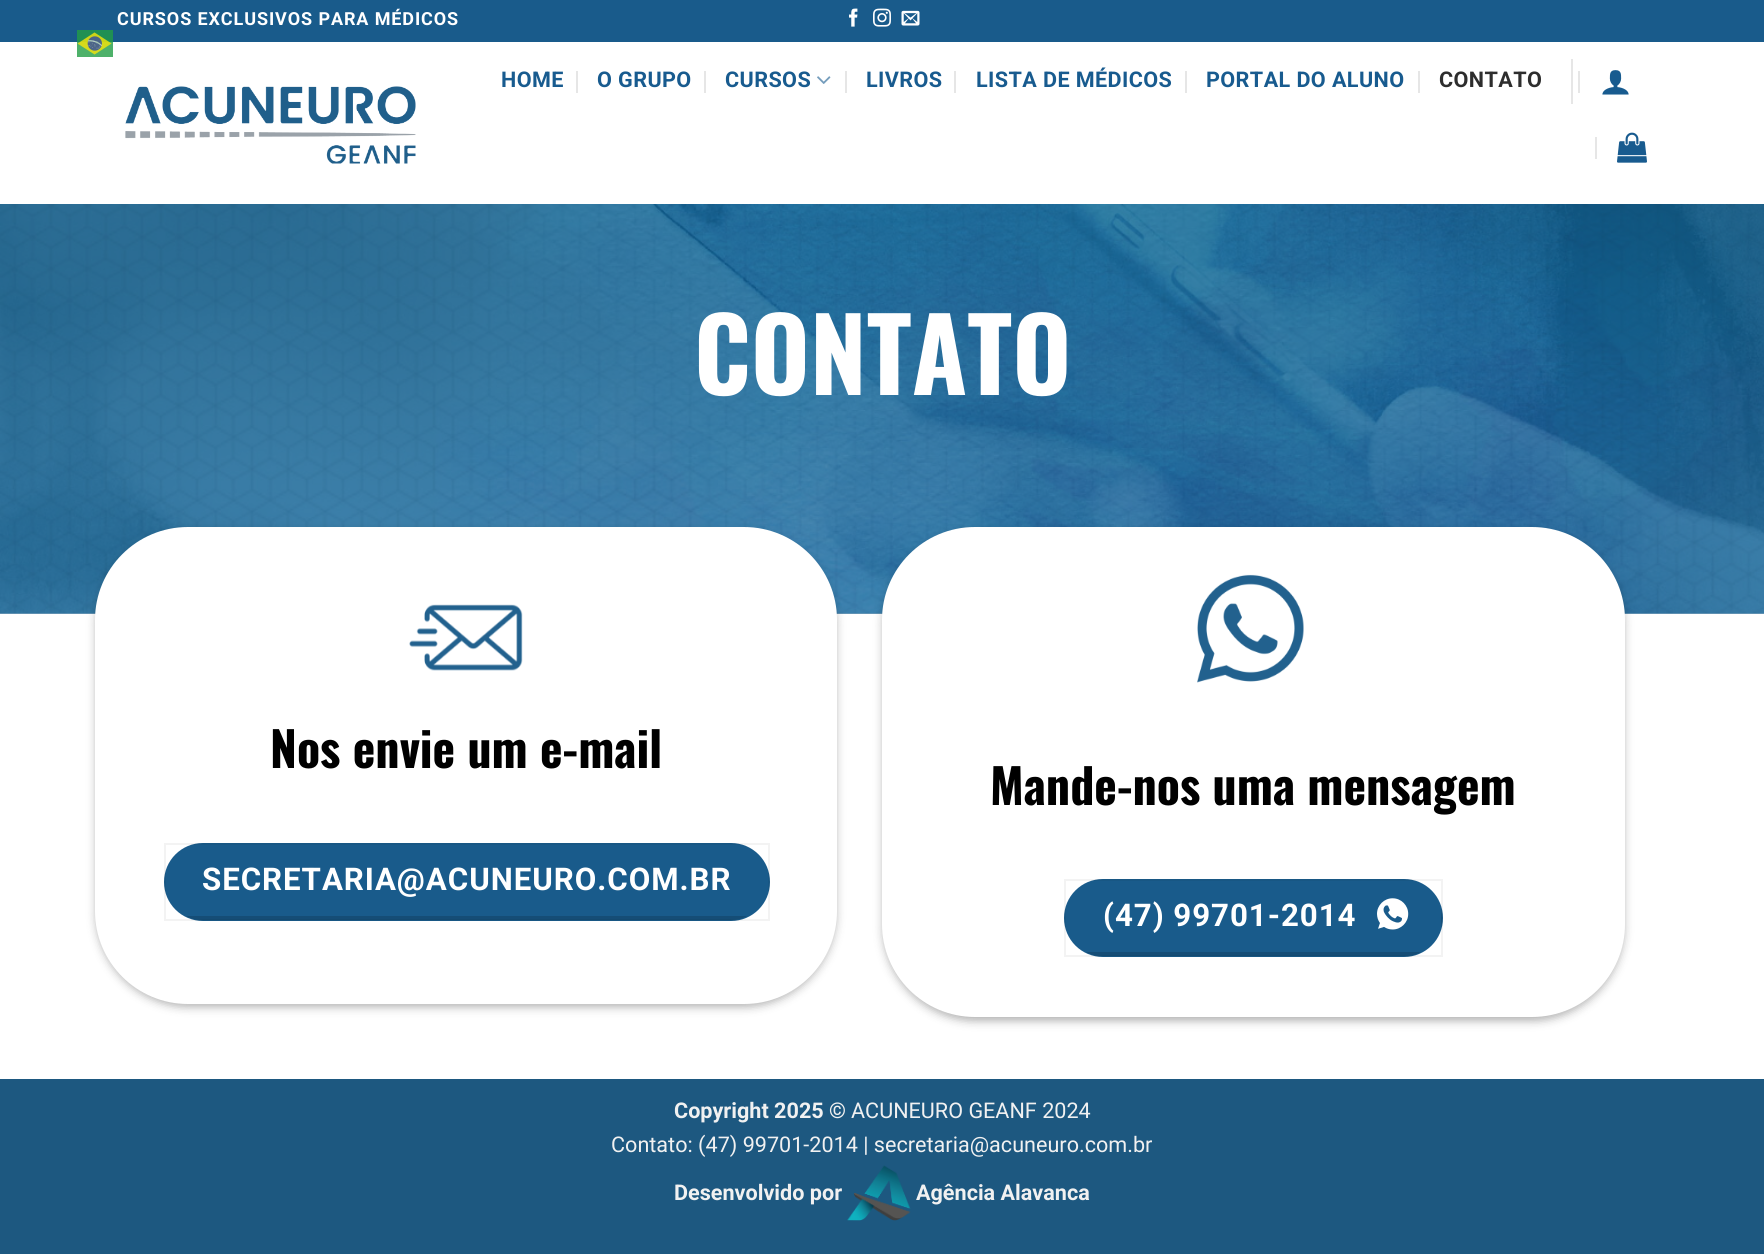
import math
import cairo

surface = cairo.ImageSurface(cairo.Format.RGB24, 1764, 1254)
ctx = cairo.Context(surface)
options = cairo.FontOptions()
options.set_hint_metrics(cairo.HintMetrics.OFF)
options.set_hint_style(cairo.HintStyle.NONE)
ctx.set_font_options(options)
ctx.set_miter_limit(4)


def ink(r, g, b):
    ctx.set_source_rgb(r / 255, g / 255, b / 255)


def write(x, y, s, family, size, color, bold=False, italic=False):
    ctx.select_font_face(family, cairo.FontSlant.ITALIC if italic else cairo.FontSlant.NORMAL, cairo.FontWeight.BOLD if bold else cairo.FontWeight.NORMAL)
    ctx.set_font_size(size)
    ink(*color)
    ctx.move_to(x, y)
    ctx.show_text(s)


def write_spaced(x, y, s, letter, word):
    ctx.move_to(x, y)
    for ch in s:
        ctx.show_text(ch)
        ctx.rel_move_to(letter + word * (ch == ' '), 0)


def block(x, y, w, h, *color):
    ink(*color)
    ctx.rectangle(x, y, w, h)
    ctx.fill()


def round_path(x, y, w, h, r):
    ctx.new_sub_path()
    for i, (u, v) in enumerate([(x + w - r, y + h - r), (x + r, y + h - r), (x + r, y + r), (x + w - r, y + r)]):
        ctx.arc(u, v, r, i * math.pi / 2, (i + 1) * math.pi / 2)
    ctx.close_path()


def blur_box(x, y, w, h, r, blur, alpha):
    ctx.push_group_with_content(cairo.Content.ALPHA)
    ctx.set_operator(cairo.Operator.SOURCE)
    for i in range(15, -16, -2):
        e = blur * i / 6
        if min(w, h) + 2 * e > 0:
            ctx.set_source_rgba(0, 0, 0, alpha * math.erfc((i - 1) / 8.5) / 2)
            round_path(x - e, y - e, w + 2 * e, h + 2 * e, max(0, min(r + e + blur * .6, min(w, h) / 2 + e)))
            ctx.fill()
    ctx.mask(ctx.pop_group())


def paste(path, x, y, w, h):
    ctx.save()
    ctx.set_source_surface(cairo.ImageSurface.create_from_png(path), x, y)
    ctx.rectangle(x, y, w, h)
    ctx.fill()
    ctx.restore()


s1 = dict(family="Oswald", size=101, color=(255, 255, 255), bold=True)
s2 = dict(family="Oswald", size=48, color=(0, 0, 0), bold=True)
s3 = dict(family="Roboto", size=21.6, color=(241, 241, 241), bold=True)
s4 = dict(family="Roboto", size=21.6, color=(241, 241, 241))

ink(255, 255, 255)
ctx.paint()
block(0, 0, 1764, 42, 25, 91, 139)
paste("pic1.png", 77, 30, 36, 27)
block(0, 613, 1764, 1, 110, 152, 182)
ctx.select_font_face("Roboto", cairo.FontSlant.NORMAL, cairo.FontWeight.BOLD)
ctx.set_font_size(18)
ink(255, 255, 255)
write_spaced(117, 25, "CURSOS EXCLUSIVOS PARA MÉDICOS", 0.9, 0)
paste("pic2.png", 849, 8, 9, 19)
paste("pic3.png", 873, 8, 18, 19)
paste("pic4.png", 901, 10, 19, 16)
ctx.set_font_size(21.6)
ink(24, 91, 143)
write_spaced(501, 87, "HOME", 0.4, 0)
block(576, 71, 2, 22, 230, 230, 230)
ink(24, 91, 143)
write_spaced(597, 87, "O GRUPO", 0.4, 0)
block(704, 71, 2, 22, 230, 230, 230)
ink(24, 91, 143)
write_spaced(725, 87, "CURSOS", 0.4, 0)
paste("pic5.png", 817, 76, 14, 8)
block(845, 71, 2, 22, 230, 230, 230)
ink(24, 91, 143)
write_spaced(866, 87, "LIVROS", 0.4, 0)
block(954, 71, 2, 22, 230, 230, 230)
ink(24, 91, 143)
write_spaced(976, 87, "LISTA DE MÉDICOS", 0.4, 0)
block(1185, 71, 2, 22, 230, 230, 230)
ink(24, 91, 143)
write_spaced(1206, 87, "PORTAL DO ALUNO", 0.4, 0)
block(1418, 71, 2, 22, 230, 230, 230)
ink(45, 45, 45)
write_spaced(1439, 87, "CONTATO", 0.4, 0)
block(1571, 59, 2, 45, 230, 230, 230)
block(1578, 71, 2, 22, 230, 230, 230)
paste("pic6.png", 1602, 70, 27, 25)
block(1595, 137, 2, 22, 230, 230, 230)
paste("pic7.png", 1617, 132, 30, 31)
paste("pic8.png", 125, 86, 291, 78)
paste("pic9.png", 0, 204, 1764, 410)
write(694, 395, "CONTATO", **s1)
ink(0, 0, 0)
blur_box(95, 531, 742, 477, 93, 4.5, 0.23)
blur_box(101, 537, 730, 465, 87, 4.5, 0.16)
ink(255, 255, 255)
round_path(95, 527, 742, 477, 93)
ctx.fill()
paste("pic10.png", 409, 604, 114, 67)
write(270, 768, "Nos envie um e-mail", **s2)
ink(25, 91, 139)
round_path(164, 843, 606, 78, 39)
ctx.fill()
ctx.rectangle(165, 844, 604, 76)
ctx.set_source_rgba(0, 0, 0, 0.05)
ctx.stroke()
ctx.select_font_face("Roboto", cairo.FontSlant.NORMAL, cairo.FontWeight.BOLD)
ctx.set_font_size(31.25)
ink(255, 255, 255)
write_spaced(202, 890, "SECRETARIA@ACUNEURO.COM.BR", 0.95, 0)
ctx.set_source_rgba(0, 0, 0, 0.15)
ctx.new_path()
ctx.move_to(747, 916)
ctx.line_to(186, 916)
ctx.curve_to(191, 919, 196, 920, 202, 920)
ctx.line_to(730, 920)
ctx.curve_to(737, 920, 742, 919, 747, 916)
ctx.close_path()
ctx.fill()
ink(0, 0, 0)
blur_box(882, 531, 743, 491, 93, 4.5, 0.23)
blur_box(888, 537, 731, 479, 87, 4.5, 0.16)
ink(255, 255, 255)
round_path(882, 527, 743, 490, 93)
ctx.fill()
paste("pic11.png", 1197, 574, 107, 109)
write(990, 805, "Mande-nos uma mensagem", **s2)
ink(25, 91, 139)
round_path(1064, 879, 379, 78, 39)
ctx.fill()
ctx.rectangle(1065, 880, 377, 76)
ctx.set_source_rgba(0, 0, 0, 0.05)
ctx.stroke()
ctx.select_font_face("Roboto", cairo.FontSlant.NORMAL, cairo.FontWeight.BOLD)
ctx.set_font_size(31.25)
ink(255, 255, 255)
write_spaced(1103, 926, "(47) 99701-2014", 0.95, 0)
paste("pic12.png", 1377, 898, 32, 32)
ctx.set_source_rgba(0, 0, 0, 0.15)
ctx.set_fill_rule(cairo.FillRule.EVEN_ODD)
ctx.new_path()
ctx.move_to(1441, 910)
ctx.line_to(1441, 927)
ctx.curve_to(1442, 921, 1442, 916, 1441, 910)
ctx.close_path()
ctx.move_to(1421, 952)
ctx.line_to(1086, 952)
ctx.curve_to(1091, 955, 1096, 956, 1102, 956)
ctx.line_to(1404, 956)
ctx.curve_to(1411, 956, 1416, 955, 1421, 952)
ctx.close_path()
ctx.fill()
block(0, 1079, 1764, 175, 29, 88, 128)
write(674, 1118, "Copyright 2025 ©", **s3)
write(851, 1118, "ACUNEURO GEANF 2024", **s4)
write(611, 1152, "Contato: (47) 99701-2014 | secretaria@acuneuro.com.br", **s4)
write(674, 1200, "Desenvolvido por", **s3)
paste("pic13.png", 847, 1165, 64, 56)
write(916, 1200, "Agência Alavanca", **s3)
surface.write_to_png("screenshot.png")
